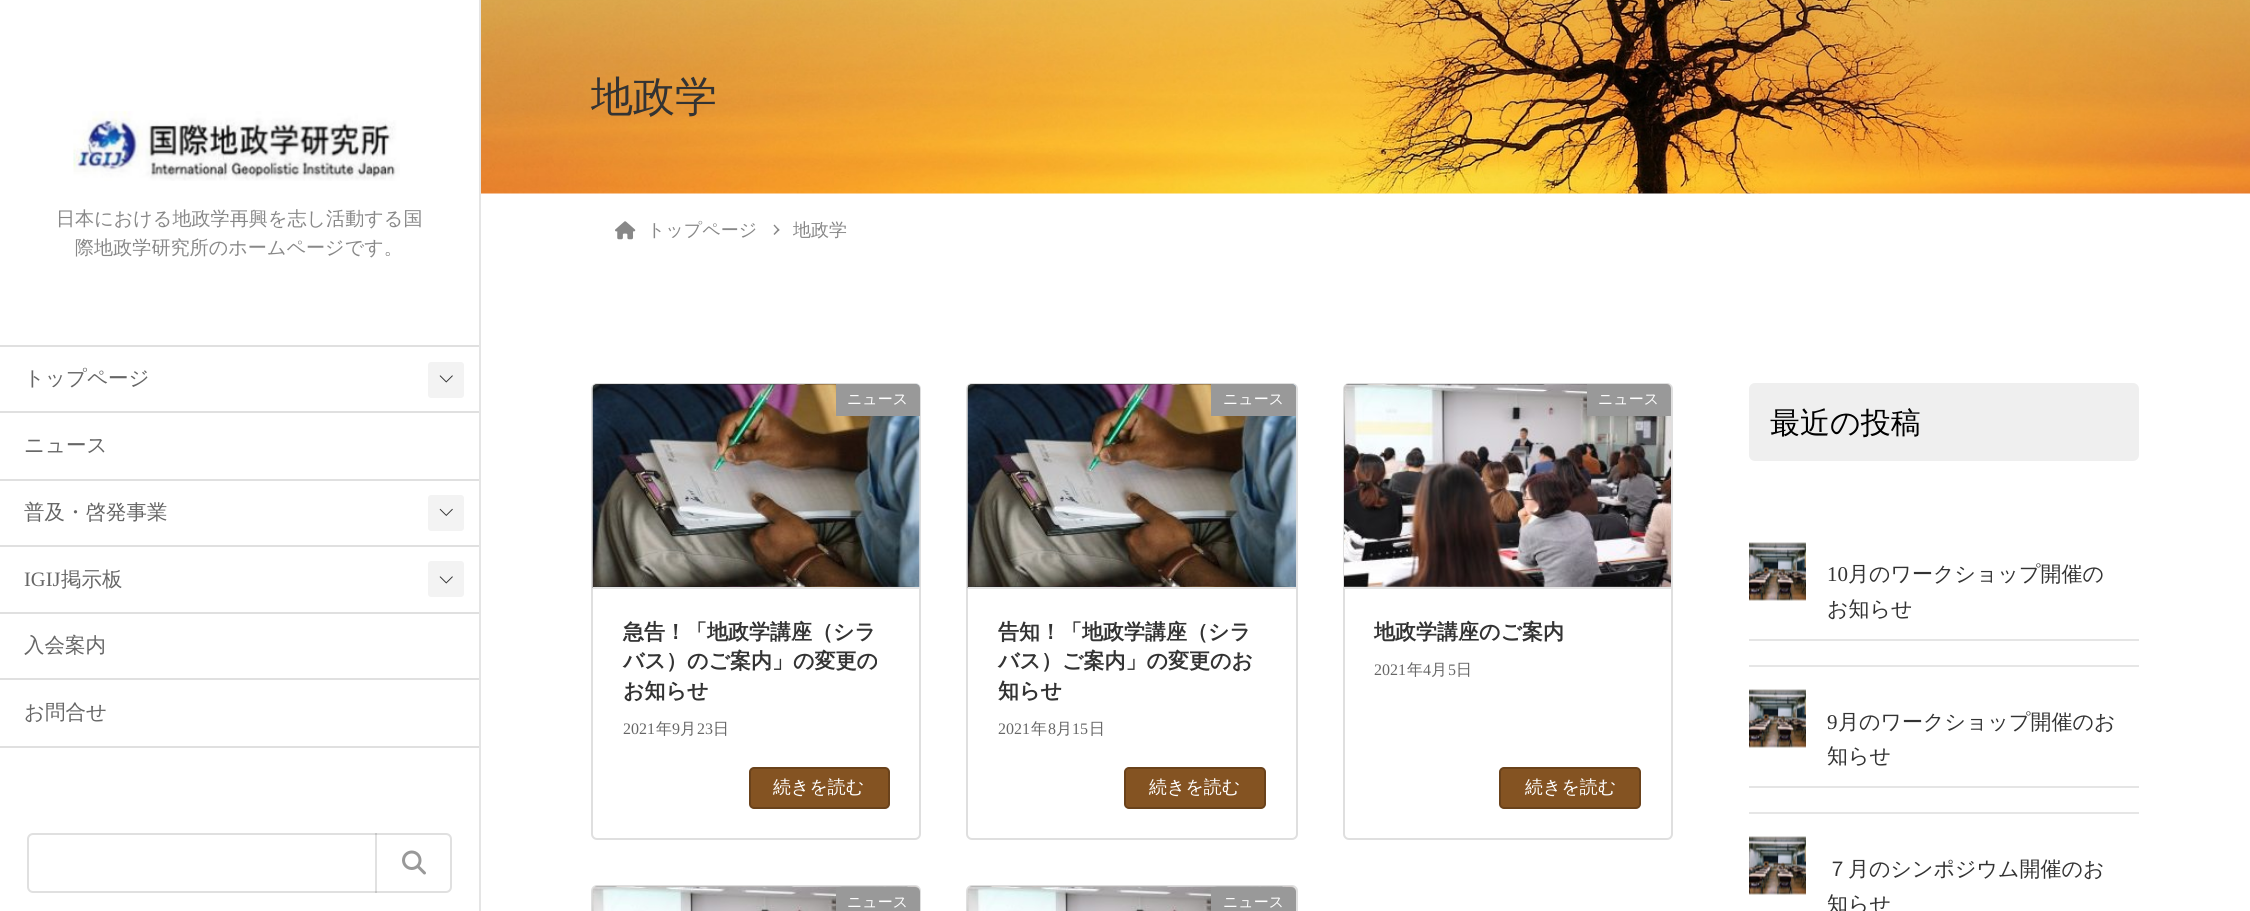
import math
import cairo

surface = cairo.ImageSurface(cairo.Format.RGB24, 2250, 911)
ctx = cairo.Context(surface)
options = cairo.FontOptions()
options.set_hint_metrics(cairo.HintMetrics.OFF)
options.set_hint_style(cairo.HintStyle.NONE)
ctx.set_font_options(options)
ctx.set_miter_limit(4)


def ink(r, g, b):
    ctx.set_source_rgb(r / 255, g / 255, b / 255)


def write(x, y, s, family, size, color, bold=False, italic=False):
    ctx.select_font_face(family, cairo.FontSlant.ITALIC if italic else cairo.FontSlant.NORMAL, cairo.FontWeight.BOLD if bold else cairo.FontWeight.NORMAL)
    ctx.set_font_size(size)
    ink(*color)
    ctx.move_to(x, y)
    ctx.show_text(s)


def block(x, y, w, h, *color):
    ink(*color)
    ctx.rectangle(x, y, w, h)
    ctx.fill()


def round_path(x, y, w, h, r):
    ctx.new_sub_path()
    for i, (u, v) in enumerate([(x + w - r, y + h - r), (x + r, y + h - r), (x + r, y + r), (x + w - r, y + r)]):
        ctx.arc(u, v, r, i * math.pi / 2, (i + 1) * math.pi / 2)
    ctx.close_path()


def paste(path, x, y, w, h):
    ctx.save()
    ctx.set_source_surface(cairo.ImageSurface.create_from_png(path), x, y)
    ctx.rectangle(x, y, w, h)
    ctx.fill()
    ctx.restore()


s1 = dict(family="WenQuanYi Zen Hei Medium", size=19.1, color=(136, 136, 136))
s2 = dict(family="WenQuanYi Zen Hei Medium", size=20.5, color=(102, 102, 102))
s3 = dict(family="Liberation Serif", size=20.5, color=(102, 102, 102))
s4 = dict(family="WenQuanYi Zen Hei Medium", size=42, color=(51, 51, 51))
s5 = dict(family="WenQuanYi Zen Hei Medium", size=18, color=(136, 136, 136))
s6 = dict(family="WenQuanYi Zen Hei Medium", size=15, color=(255, 255, 255))
s7 = dict(family="WenQuanYi Zen Hei", size=21, color=(51, 51, 51), bold=True)
s8 = dict(family="Liberation Serif", size=16, color=(102, 102, 102))
s9 = dict(family="WenQuanYi Zen Hei Medium", size=16, color=(102, 102, 102))
s10 = dict(family="WenQuanYi Zen Hei Medium", size=18, color=(255, 255, 255))
s11 = dict(family="WenQuanYi Zen Hei Medium", size=30, color=(0, 0, 0))
s12 = dict(family="Liberation Serif", size=21, color=(51, 51, 51))
s13 = dict(family="WenQuanYi Zen Hei Medium", size=21, color=(51, 51, 51))

ink(255, 255, 255)
ctx.paint()
block(479, 0, 2, 911, 229, 229, 229)
paste("pic1.png", 73, 110, 327, 71)
write(56, 225, "日本における地政学再興を志し活動する国", **s1)
write(75, 254, "際地政学研究所のホームページです。", **s1)
block(0, 345, 479, 2, 224, 224, 224)
write(24, 385, "トップページ", **s2)
ink(243, 243, 243)
round_path(428, 362, 36, 36, 3)
ctx.fill()
paste("pic2.png", 439, 375, 14, 8)
block(0, 411, 479, 2, 224, 224, 224)
write(24, 452, "ニュース", **s2)
block(0, 479, 479, 2, 224, 224, 224)
write(24, 519, "普及・啓発事業", **s2)
ink(243, 243, 243)
round_path(428, 495, 36, 36, 3)
ctx.fill()
paste("pic3.png", 439, 508, 14, 8)
block(0, 545, 479, 2, 224, 224, 224)
write(24, 586, "IGIJ", **s3)
write(61, 586, "掲示板", **s2)
ink(243, 243, 243)
round_path(428, 561, 36, 36, 3)
ctx.fill()
paste("pic2.png", 439, 576, 14, 8)
block(0, 612, 479, 2, 224, 224, 224)
write(24, 652, "入会案内", **s2)
block(0, 678, 479, 2, 224, 224, 224)
block(0, 746, 479, 2, 224, 224, 224)
write(24, 719, "お問合せ", **s2)
round_path(28, 834, 423, 58, 5)
ink(224, 224, 224)
ctx.stroke()
ctx.set_source_rgba(0, 0, 0, 0.12)
ctx.rectangle(375, 833, 2, 60)
ctx.fill()
paste("pic4.png", 402, 850, 24, 25)
paste("pic5.png", 481, 0, 1769, 194)
write(591, 111, "地政学", **s4)
paste("pic6.png", 615, 221, 21, 19)
write(647, 236, "トップページ", **s5)
ctx.new_path()
ctx.move_to(774.5, 224.5)
ctx.line_to(779.5, 230)
ctx.line_to(778.5, 231)
ctx.line_to(773.5, 225.5)
ctx.close_path()
ctx.fill()
ctx.new_path()
ctx.move_to(778.5, 228.5)
ctx.line_to(779.5, 230)
ctx.line_to(774.5, 235)
ctx.line_to(773.5, 234)
ctx.close_path()
ctx.fill()
write(793, 236, "地政学", **s5)
round_path(592, 384, 328, 455, 5)
ink(223, 223, 223)
ctx.stroke()
paste("pic7.png", 592, 384, 328, 204)
block(593, 587, 327, 2, 229, 229, 229)
ink(153, 153, 153)
ctx.new_path()
ctx.move_to(836, 384)
ctx.line_to(915, 384)
ctx.curve_to(918, 384, 920, 386, 920, 389)
ctx.line_to(920, 416)
ctx.line_to(836, 416)
ctx.close_path()
ctx.fill()
write(847, 404, "ニュース", **s6)
write(623, 639, "急告！「地政学講座（シラ", **s7)
write(623, 668, "バス）のご案内」の変更の", **s7)
write(623, 698, "お知らせ", **s7)
write(623, 734, "2021", **s8)
write(656, 734, "年", **s9)
write(672, 734, "9", **s8)
write(680, 734, "月", **s9)
write(697, 734, "23", **s8)
write(713, 734, "日", **s9)
ink(132, 83, 34)
round_path(750, 768, 139, 40, 4)
ctx.fill_preserve()
ink(106, 66, 27)
ctx.stroke()
write(773, 793, "続きを読む", **s10)
round_path(967, 384, 330, 455, 5)
ink(223, 223, 223)
ctx.stroke()
paste("pic8.png", 967, 384, 329, 204)
block(968, 587, 328, 2, 229, 229, 229)
ink(153, 153, 153)
ctx.new_path()
ctx.move_to(1211, 384)
ctx.line_to(1291, 384)
ctx.curve_to(1294, 384, 1296, 386, 1296, 389)
ctx.line_to(1296, 416)
ctx.line_to(1211, 416)
ctx.close_path()
ctx.fill()
write(1223, 404, "ニュース", **s6)
write(998, 639, "告知！「地政学講座（シラ", **s7)
write(998, 668, "バス）ご案内」の変更のお", **s7)
write(998, 698, "知らせ", **s7)
write(998, 734, "2021", **s8)
write(1031, 734, "年", **s9)
write(1048, 734, "8", **s8)
write(1056, 734, "月", **s9)
write(1072, 734, "15", **s8)
write(1089, 734, "日", **s9)
ink(132, 83, 34)
round_path(1125, 768, 140, 40, 4)
ctx.fill_preserve()
ink(106, 66, 27)
ctx.stroke()
write(1149, 793, "続きを読む", **s10)
round_path(1344, 384, 328, 455, 5)
ink(223, 223, 223)
ctx.stroke()
paste("pic9.png", 1344, 384, 327, 203)
block(1344, 587, 327, 2, 229, 229, 229)
ink(153, 153, 153)
ctx.new_path()
ctx.move_to(1587, 384)
ctx.line_to(1666, 384)
ctx.curve_to(1669, 384, 1671, 386, 1671, 389)
ctx.line_to(1671, 416)
ctx.line_to(1587, 416)
ctx.close_path()
ctx.fill()
write(1598, 404, "ニュース", **s6)
write(1374, 639, "地政学講座のご案内", **s7)
write(1374, 675, "2021", **s8)
write(1407, 675, "年", **s9)
write(1423, 675, "4", **s8)
write(1431, 675, "月", **s9)
write(1448, 675, "5", **s8)
write(1456, 675, "日", **s9)
ink(132, 83, 34)
round_path(1500, 768, 140, 40, 4)
ctx.fill_preserve()
ink(106, 66, 27)
ctx.stroke()
write(1525, 793, "続きを読む", **s10)
round_path(592, 886, 328, 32, 5)
ink(223, 223, 223)
ctx.stroke()
paste("pic10.png", 592, 886, 327, 25)
ink(153, 153, 153)
ctx.new_path()
ctx.move_to(836, 887)
ctx.line_to(915, 887)
ctx.curve_to(918, 887, 920, 889, 920, 892)
ctx.line_to(920, 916)
ctx.line_to(836, 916)
ctx.close_path()
ctx.fill()
write(847, 907, "ニュース", **s6)
round_path(967, 886, 330, 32, 5)
ink(223, 223, 223)
ctx.stroke()
paste("pic11.png", 967, 886, 329, 25)
ink(153, 153, 153)
ctx.new_path()
ctx.move_to(1211, 887)
ctx.line_to(1291, 887)
ctx.curve_to(1294, 887, 1296, 889, 1296, 892)
ctx.line_to(1296, 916)
ctx.line_to(1211, 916)
ctx.close_path()
ctx.fill()
write(1223, 907, "ニュース", **s6)
ink(239, 239, 239)
round_path(1749, 383, 390, 78, 6)
ctx.fill()
write(1770, 433, "最近の投稿", **s11)
block(1749, 665, 390, 2, 230, 230, 230)
paste("pic12.png", 1749, 542, 57, 59)
block(1749, 639, 390, 2, 229, 229, 229)
write(1827, 581, "10", **s12)
write(1848, 581, "月のワークショップ開催の", **s13)
write(1827, 616, "お知らせ", **s13)
block(1749, 812, 390, 2, 230, 230, 230)
paste("pic12.png", 1749, 689, 57, 59)
block(1749, 786, 390, 2, 229, 229, 229)
write(1827, 729, "9", **s12)
write(1838, 729, "月のワークショップ開催のお", **s13)
write(1827, 763, "知らせ", **s13)
paste("pic12.png", 1749, 836, 57, 59)
write(1827, 876, "７月のシンポジウム開催のお", **s13)
write(1827, 911, "知らせ", **s13)
surface.write_to_png("screenshot.png")
